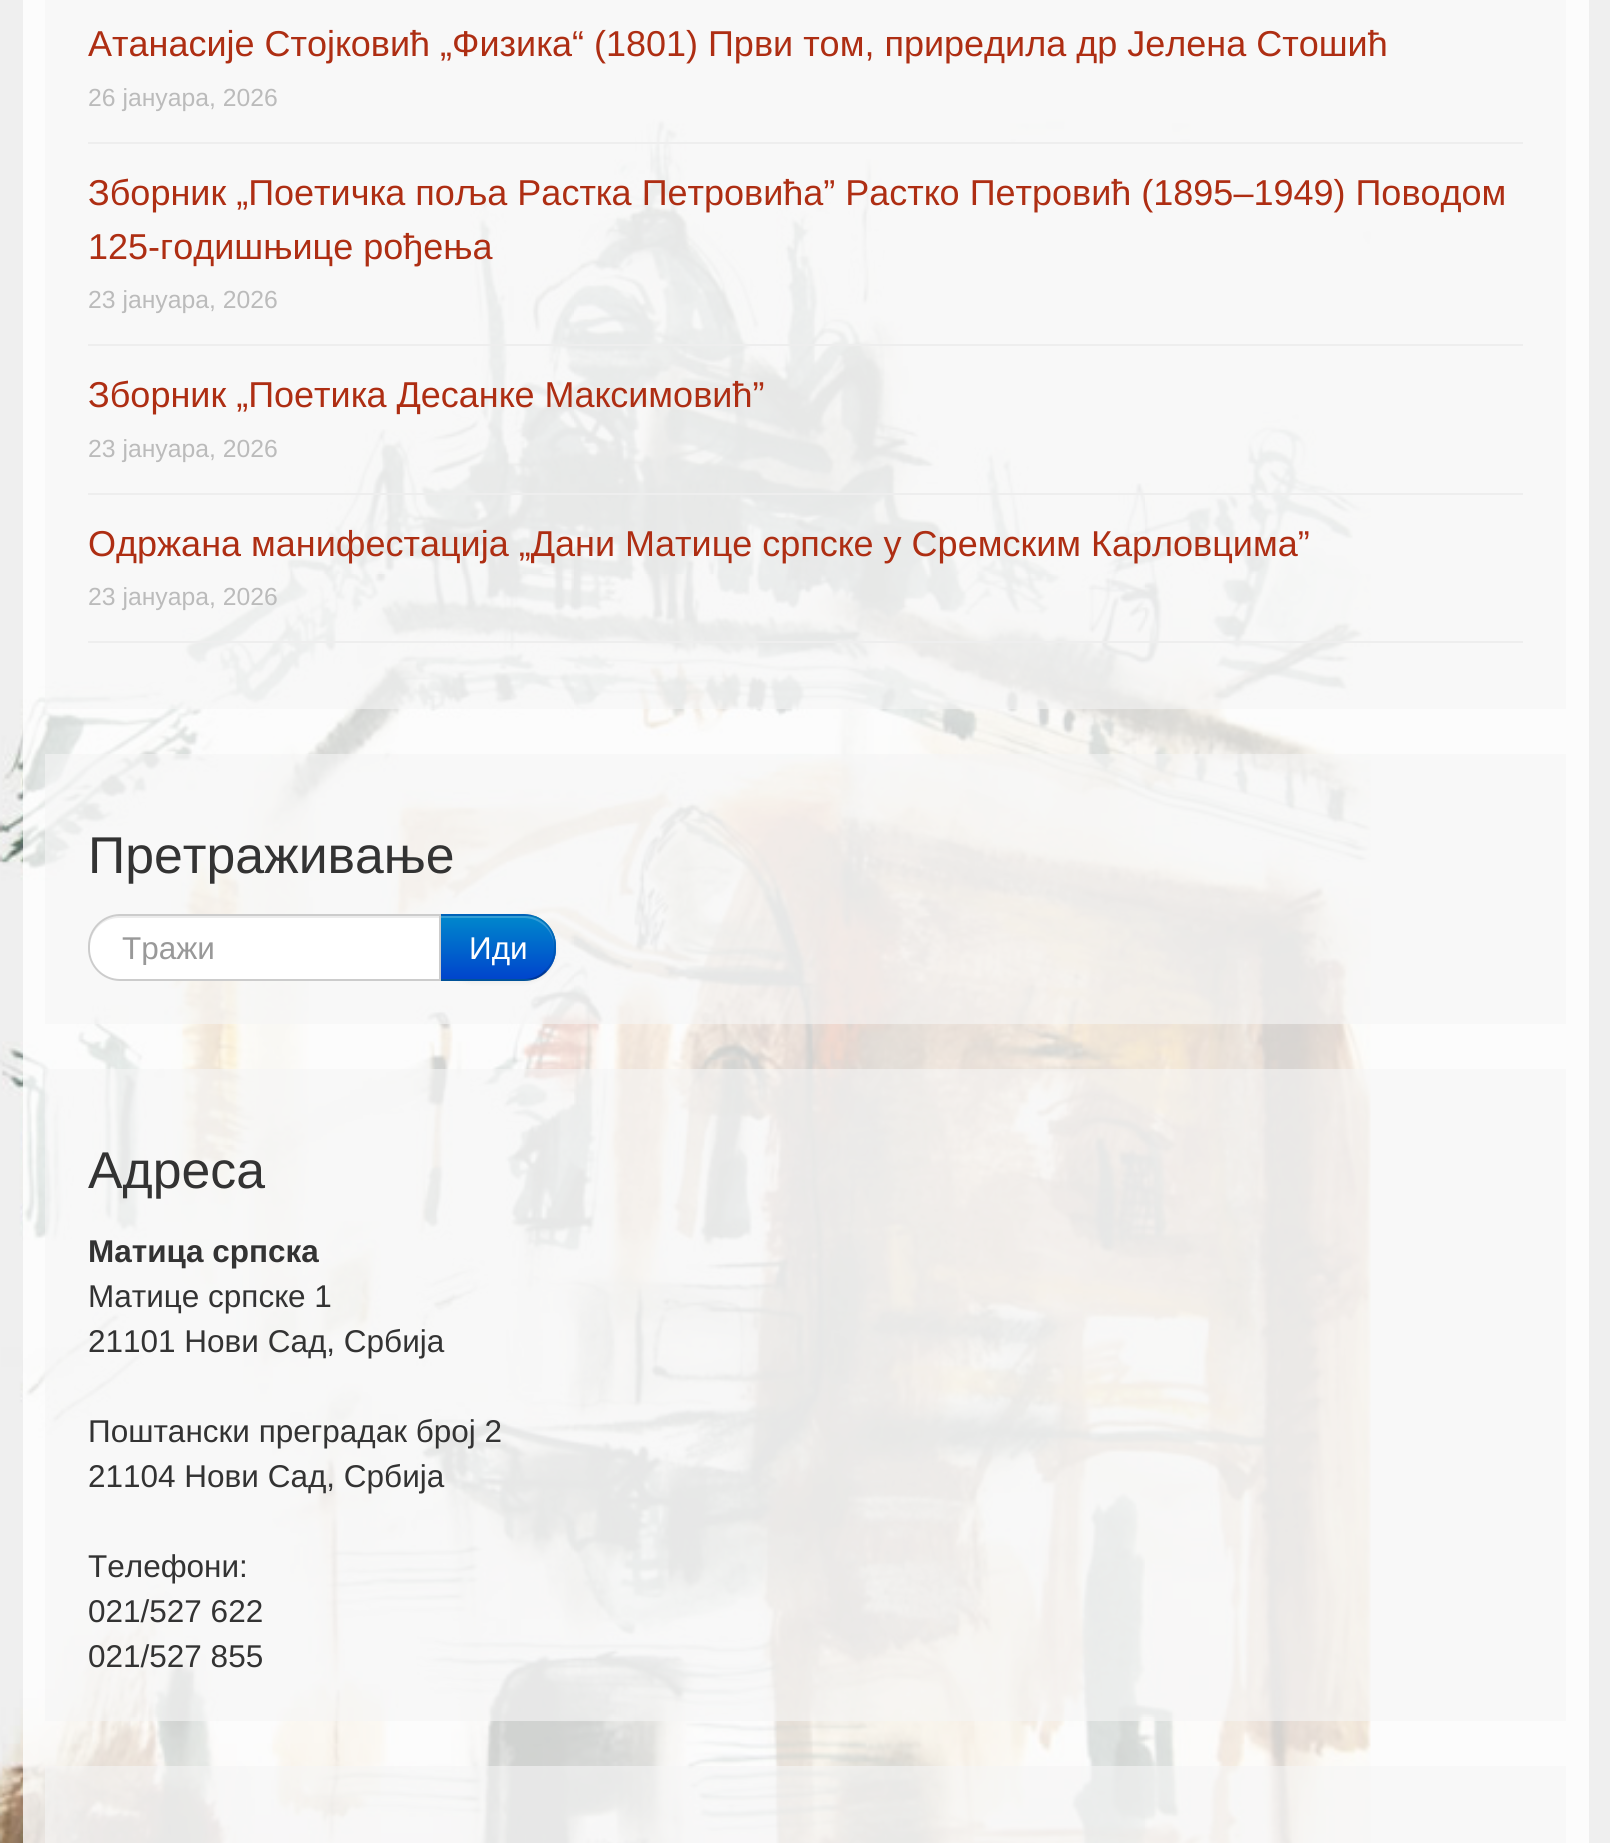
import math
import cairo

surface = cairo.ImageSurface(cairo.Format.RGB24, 1610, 1843)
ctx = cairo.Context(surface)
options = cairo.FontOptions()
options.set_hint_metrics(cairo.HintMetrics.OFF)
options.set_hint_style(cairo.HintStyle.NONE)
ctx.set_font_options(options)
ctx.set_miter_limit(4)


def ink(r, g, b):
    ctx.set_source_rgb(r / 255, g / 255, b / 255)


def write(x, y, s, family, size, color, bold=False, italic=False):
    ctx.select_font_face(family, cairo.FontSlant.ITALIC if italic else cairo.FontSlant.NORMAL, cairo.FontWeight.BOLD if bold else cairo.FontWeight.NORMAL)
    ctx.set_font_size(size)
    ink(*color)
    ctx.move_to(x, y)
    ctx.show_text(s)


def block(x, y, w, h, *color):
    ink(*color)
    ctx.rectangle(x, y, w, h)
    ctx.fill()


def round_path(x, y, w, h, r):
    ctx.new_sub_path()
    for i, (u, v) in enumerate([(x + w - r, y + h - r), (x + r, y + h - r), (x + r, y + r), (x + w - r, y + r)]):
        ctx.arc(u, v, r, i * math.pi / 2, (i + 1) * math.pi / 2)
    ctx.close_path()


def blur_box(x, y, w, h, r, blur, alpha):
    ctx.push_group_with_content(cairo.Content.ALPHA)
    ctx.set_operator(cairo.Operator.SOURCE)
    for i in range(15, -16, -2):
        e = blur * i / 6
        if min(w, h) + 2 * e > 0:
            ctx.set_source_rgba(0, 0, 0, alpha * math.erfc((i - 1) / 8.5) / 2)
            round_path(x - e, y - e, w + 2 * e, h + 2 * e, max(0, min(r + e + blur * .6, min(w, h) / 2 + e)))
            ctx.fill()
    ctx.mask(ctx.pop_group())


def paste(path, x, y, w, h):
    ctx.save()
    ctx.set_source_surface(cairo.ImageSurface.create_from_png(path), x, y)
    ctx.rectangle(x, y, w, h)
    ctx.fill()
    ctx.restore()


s1 = dict(family="Liberation Sans", size=36, color=(174, 46, 19))
s2 = dict(family="Liberation Sans", size=24.75, color=(187, 187, 187))
s3 = dict(family="Liberation Sans", size=51.75, color=(51, 51, 51))
s4 = dict(family="Liberation Sans", size=31.5, color=(153, 153, 153))
s5 = dict(family="Liberation Sans", size=31.5, color=(255, 255, 255))
s6 = dict(family="Liberation Sans", size=31.5, color=(51, 51, 51), bold=True)
s7 = dict(family="Liberation Sans", size=31.5, color=(51, 51, 51))

ink(239, 239, 239)
ctx.paint()
block(23, 0, 1566, 1843, 252, 252, 252)
paste("pic1.png", 0, 119, 1371, 1724)
ctx.set_source_rgba(0.961, 0.961, 0.961, 0.6)
ctx.rectangle(45, 0, 1521, 709)
ctx.fill()
block(88, 142, 1435, 2, 238, 238, 238)
write(88, 56, "Атанасије Стојковић „Физика“ (1801) Први том, приредила др Јелена Стошић", **s1)
write(88, 106, "26 јануара, 2026", **s2)
block(88, 344, 1435, 2, 238, 238, 238)
write(88, 205, "Зборник „Поетичка поља Растка Петровића” Растко Петровић (1895–1949) Поводом", **s1)
write(88, 259, "125-годишњице рођења", **s1)
write(88, 308, "23 јануара, 2026", **s2)
block(88, 493, 1435, 2, 238, 238, 238)
write(88, 407, "Зборник „Поетика Десанке Максимовић”", **s1)
write(88, 457, "23 јануара, 2026", **s2)
block(88, 641, 1435, 2, 238, 238, 238)
write(88, 556, "Одржана манифестација „Дани Матице српске у Сремским Карловцима”", **s1)
write(88, 605, "23 јануара, 2026", **s2)
ctx.set_source_rgba(0.961, 0.961, 0.961, 0.6)
ctx.rectangle(45, 754, 1521, 270)
ctx.fill()
write(88, 873, "Претраживање", **s3)
ink(0, 0, 0)
blur_box(439, 916, 117, 67, 32, 2, 0.05)
ink(0, 109, 204)
ctx.new_path()
ctx.move_to(439, 914)
ctx.line_to(524, 914)
ctx.curve_to(541.5, 914, 556, 928.5, 556, 946)
ctx.line_to(556, 949)
ctx.curve_to(556, 966.5, 541.5, 981, 524, 981)
ctx.line_to(439, 981)
ctx.close_path()
ctx.fill()
ctx.save()
ctx.new_path()
ctx.move_to(439, 914)
ctx.line_to(524, 914)
ctx.curve_to(541.5, 914, 556, 928.5, 556, 946)
ctx.line_to(556, 949)
ctx.curve_to(556, 966.5, 541.5, 981, 524, 981)
ctx.line_to(439, 981)
ctx.close_path()
ctx.clip()
gradient = cairo.LinearGradient(497, 916, 497, 979)
gradient.add_color_stop_rgba(0, 0, 0.533, 0.8, 1)
gradient.add_color_stop_rgba(1, 0, 0.267, 0.8, 1)
ctx.set_source(gradient)
ctx.rectangle(441, 916, 115, 63)
ctx.fill()
ctx.restore()
ctx.set_source_rgba(1, 1, 1, 0.2)
ctx.new_path()
ctx.move_to(441, 918)
ctx.line_to(524, 918)
ctx.curve_to(540, 918, 554, 931, 554, 947)
ctx.line_to(554, 945)
ctx.curve_to(554, 929, 541, 916, 525, 916)
ctx.line_to(441, 916)
ctx.close_path()
ctx.fill()
ctx.set_source_rgba(0, 0, 0, 0.1)
ctx.new_path()
ctx.move_to(546, 923)
ctx.curve_to(541, 917, 533, 914, 524, 914)
ctx.line_to(439, 914)
ctx.line_to(441, 916)
ctx.line_to(524, 916)
ctx.curve_to(532, 916, 539, 919, 545, 924)
ctx.close_path()
ctx.fill()
ctx.new_path()
ctx.move_to(546, 923)
ctx.curve_to(554, 930, 556, 938, 556, 948)
ctx.curve_to(556, 957, 554, 965, 547, 972)
ctx.line_to(545, 970)
ctx.curve_to(557, 959, 557, 936, 545, 924)
ctx.close_path()
ctx.fill()
ctx.set_source_rgba(0, 0, 0, 0.25)
ctx.new_path()
ctx.move_to(439, 981)
ctx.line_to(524, 981)
ctx.curve_to(533, 981, 541, 978, 547, 972)
ctx.line_to(545, 970)
ctx.curve_to(540, 976, 532, 979, 524, 979)
ctx.line_to(441, 979)
ctx.close_path()
ctx.fill()
ink(255, 255, 255)
ctx.new_path()
ctx.move_to(120, 914)
ctx.line_to(441, 914)
ctx.line_to(441, 981)
ctx.line_to(120, 981)
ctx.curve_to(102.5, 981, 88, 966.5, 88, 949)
ctx.line_to(88, 946)
ctx.curve_to(88, 928.5, 102.5, 914, 120, 914)
ctx.close_path()
ctx.fill()
ink(236, 236, 236)
ctx.new_path()
ctx.move_to(119, 918)
ctx.line_to(439, 918)
ctx.line_to(439, 916)
ctx.line_to(119, 916)
ctx.curve_to(103, 916, 90, 929, 90, 945)
ctx.line_to(90, 947)
ctx.curve_to(90, 931, 103, 918, 119, 918)
ctx.close_path()
ctx.fill()
ctx.new_path()
ctx.move_to(120, 915)
ctx.line_to(440, 915)
ctx.line_to(440, 980)
ctx.line_to(120, 980)
ctx.curve_to(103, 980, 89, 966, 89, 949)
ctx.line_to(89, 946)
ctx.curve_to(89, 929, 103, 915, 120, 915)
ctx.close_path()
ink(204, 204, 204)
ctx.stroke()
ctx.save()
ctx.rectangle(122, 929, 276, 36)
ctx.clip()
write(122, 959, "Тражи", **s4)
ctx.restore()
write(469, 959, "Иди", **s5)
ctx.set_source_rgba(0.961, 0.961, 0.961, 0.6)
ctx.rectangle(45, 1069, 1521, 652)
ctx.fill()
write(88, 1188, "Адреса", **s3)
write(88, 1262, "Матица српска", **s6)
write(88, 1307, "Матице српске 1", **s7)
write(88, 1352, "21101 Нови Сад, Србија", **s7)
write(88, 1442, "Поштански преградак број 2", **s7)
write(88, 1487, "21104 Нови Сад, Србија", **s7)
write(88, 1577, "Телефони:", **s7)
write(88, 1622, "021/527 622", **s7)
write(88, 1667, "021/527 855", **s7)
ctx.set_source_rgba(0.961, 0.961, 0.961, 0.6)
ctx.rectangle(45, 1766, 1521, 77)
ctx.fill()
surface.write_to_png("screenshot.png")
